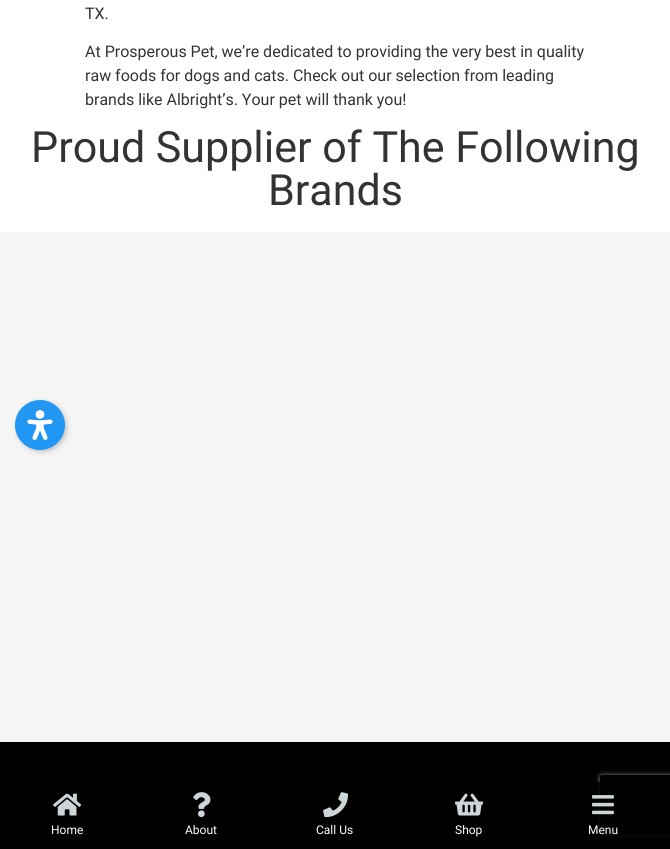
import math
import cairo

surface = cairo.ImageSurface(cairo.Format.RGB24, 670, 849)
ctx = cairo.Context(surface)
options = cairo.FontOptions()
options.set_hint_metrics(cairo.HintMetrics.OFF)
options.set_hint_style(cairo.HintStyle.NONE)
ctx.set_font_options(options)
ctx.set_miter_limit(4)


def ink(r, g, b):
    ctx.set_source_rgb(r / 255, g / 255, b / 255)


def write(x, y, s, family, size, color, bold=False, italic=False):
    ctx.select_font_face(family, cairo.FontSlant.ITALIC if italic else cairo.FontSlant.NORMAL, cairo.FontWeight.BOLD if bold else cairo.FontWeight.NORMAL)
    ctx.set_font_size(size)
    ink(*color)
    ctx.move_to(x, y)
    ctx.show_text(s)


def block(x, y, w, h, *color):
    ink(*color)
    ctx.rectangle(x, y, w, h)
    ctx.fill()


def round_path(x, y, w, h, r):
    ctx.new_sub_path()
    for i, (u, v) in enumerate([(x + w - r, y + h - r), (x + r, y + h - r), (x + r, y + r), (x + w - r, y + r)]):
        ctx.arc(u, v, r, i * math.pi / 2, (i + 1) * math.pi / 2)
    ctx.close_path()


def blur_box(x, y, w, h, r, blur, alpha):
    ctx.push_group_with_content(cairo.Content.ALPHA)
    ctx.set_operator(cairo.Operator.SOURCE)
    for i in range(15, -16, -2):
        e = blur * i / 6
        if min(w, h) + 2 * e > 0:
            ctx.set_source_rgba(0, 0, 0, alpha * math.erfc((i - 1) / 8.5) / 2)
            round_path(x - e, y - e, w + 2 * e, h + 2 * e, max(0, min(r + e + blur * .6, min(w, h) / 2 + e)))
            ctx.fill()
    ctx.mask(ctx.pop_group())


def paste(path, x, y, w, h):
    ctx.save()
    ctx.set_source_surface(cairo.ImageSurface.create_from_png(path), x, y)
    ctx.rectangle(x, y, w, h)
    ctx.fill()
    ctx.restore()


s1 = dict(family="Roboto", size=16, color=(51, 51, 51))
s2 = dict(family="Roboto", size=43, color=(51, 51, 51))
s3 = dict(family="Roboto", size=12, color=(255, 255, 255))

ink(255, 255, 255)
ctx.paint()
write(85, 19, "TX.", **s1)
write(85, 57, "At Prosperous Pet, we’re dedicated to providing the very best in quality", **s1)
write(85, 81, "raw foods for dogs and cats. Check out our selection from leading", **s1)
write(85, 105, "brands like Albright’s. Your pet will thank you!", **s1)
write(31, 162, "Proud Supplier of The Following", **s2)
write(268, 205, "Brands", **s2)
block(0, 232, 670, 510, 245, 245, 245)
block(0, 742, 670, 107, 0, 0, 0)
ink(0, 0, 0)
blur_box(17, 402, 50, 50, 25, 2.5, 0.2)
ink(33, 150, 243)
ctx.arc(40, 425, 25, 0, 2 * math.pi)
ctx.fill()
paste("pic1.png", 27, 410, 26, 30)
ctx.save()
ctx.set_fill_rule(cairo.FillRule.EVEN_ODD)
ctx.new_path()
ctx.move_to(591, 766)
ctx.line_to(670, 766)
ctx.line_to(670, 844)
ctx.line_to(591, 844)
ctx.close_path()
ctx.move_to(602, 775)
ctx.line_to(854, 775)
ctx.curve_to(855, 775, 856, 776, 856, 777)
ctx.line_to(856, 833)
ctx.curve_to(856, 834, 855, 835, 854, 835)
ctx.line_to(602, 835)
ctx.curve_to(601, 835, 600, 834, 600, 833)
ctx.line_to(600, 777)
ctx.curve_to(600, 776, 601, 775, 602, 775)
ctx.close_path()
ctx.clip()
ink(128, 128, 128)
blur_box(600, 775, 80, 60, 2, 2.5, 1)
ctx.restore()
ctx.set_source_rgba(0, 0, 0, 0.85)
ctx.rectangle(595, 782, 75, 58)
ctx.fill()
paste("pic2.png", 53, 793, 29, 23)
write(51, 834, "Home", **s3)
paste("pic3.png", 193, 792, 18, 26)
write(185, 834, "About", **s3)
paste("pic4.png", 323, 792, 26, 26)
write(316, 834, "Call Us", **s3)
paste("pic5.png", 455, 793, 29, 23)
write(455, 834, "Shop", **s3)
paste("pic6.png", 592, 795, 22, 20)
write(588, 834, "Menu", **s3)
surface.write_to_png("screenshot.png")
